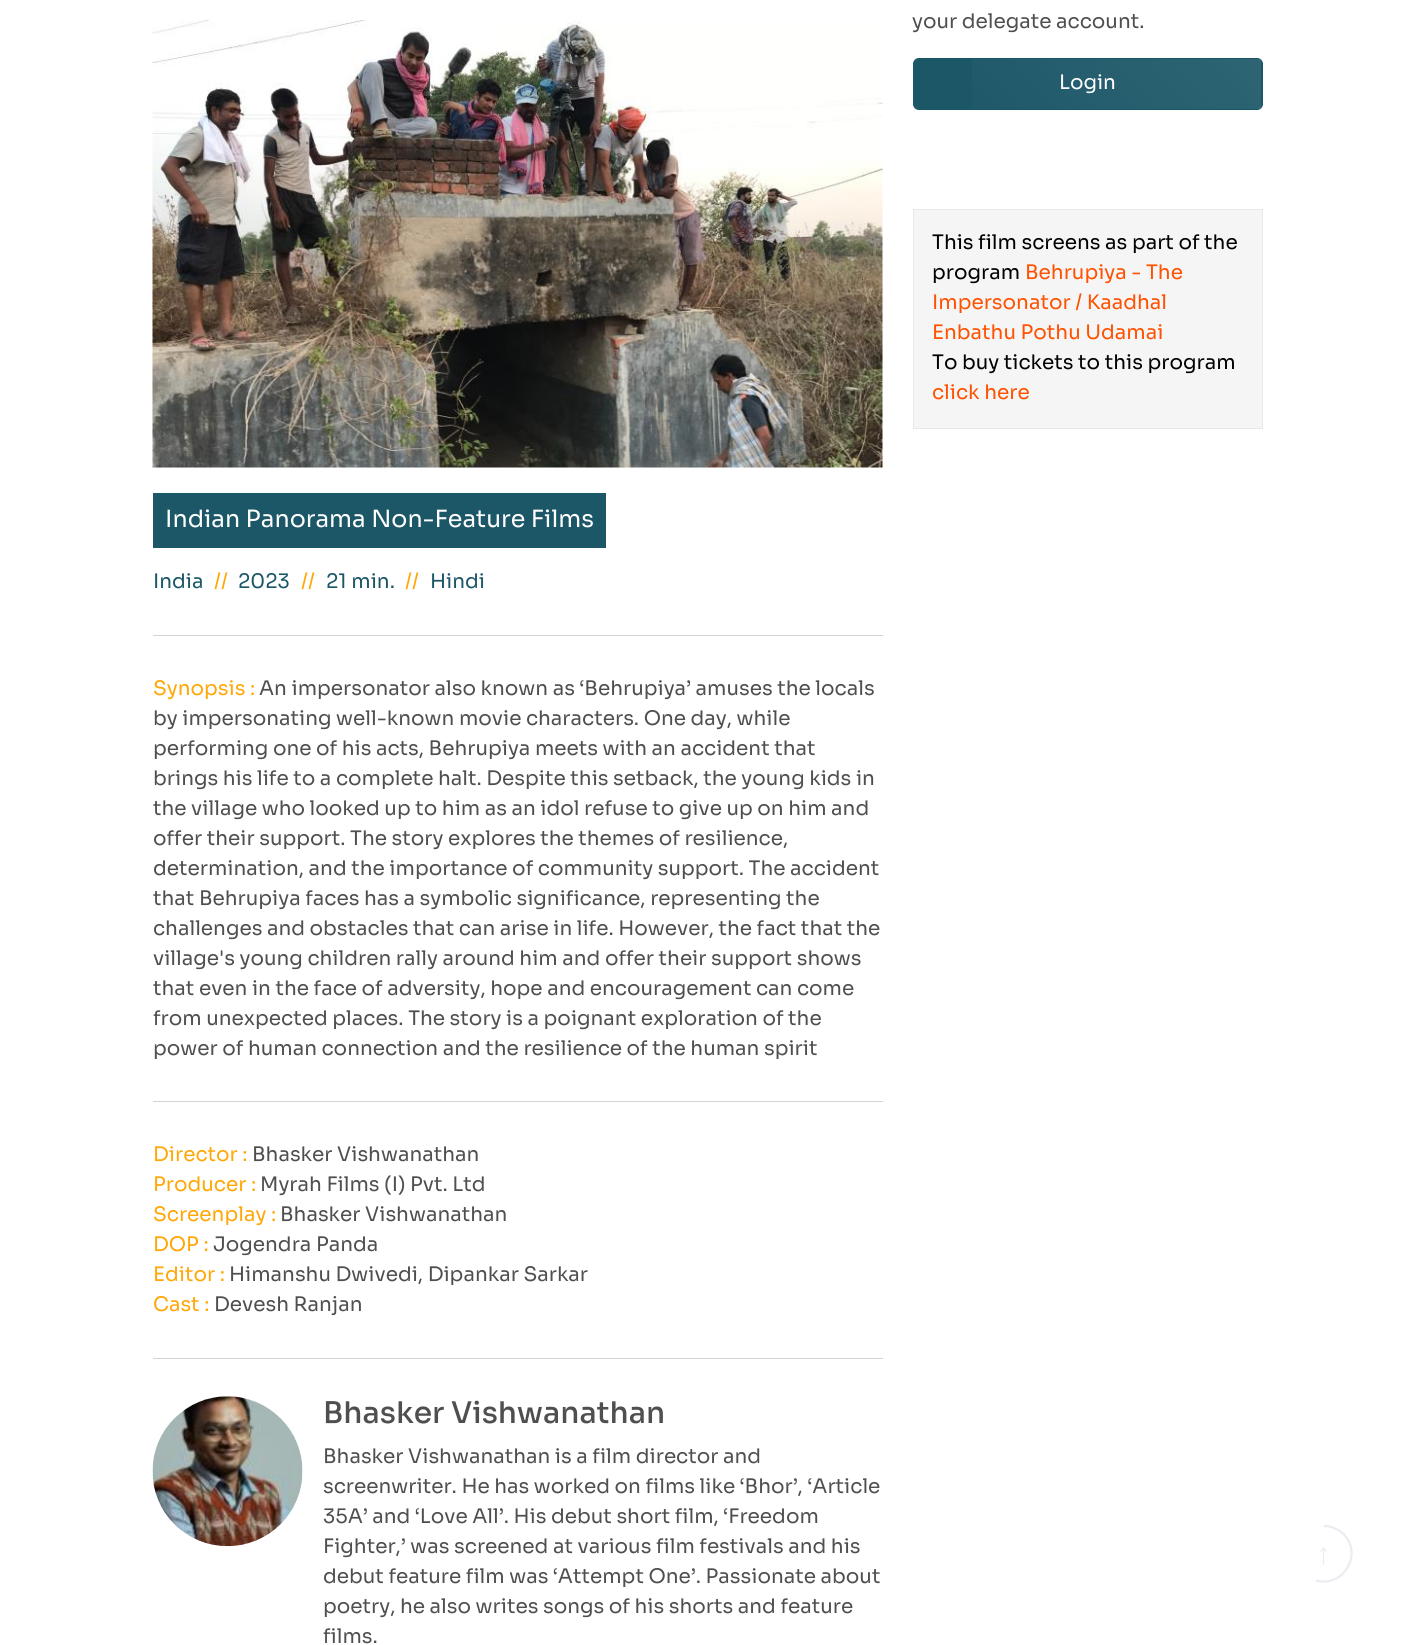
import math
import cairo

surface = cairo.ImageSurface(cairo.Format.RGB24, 1414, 1645)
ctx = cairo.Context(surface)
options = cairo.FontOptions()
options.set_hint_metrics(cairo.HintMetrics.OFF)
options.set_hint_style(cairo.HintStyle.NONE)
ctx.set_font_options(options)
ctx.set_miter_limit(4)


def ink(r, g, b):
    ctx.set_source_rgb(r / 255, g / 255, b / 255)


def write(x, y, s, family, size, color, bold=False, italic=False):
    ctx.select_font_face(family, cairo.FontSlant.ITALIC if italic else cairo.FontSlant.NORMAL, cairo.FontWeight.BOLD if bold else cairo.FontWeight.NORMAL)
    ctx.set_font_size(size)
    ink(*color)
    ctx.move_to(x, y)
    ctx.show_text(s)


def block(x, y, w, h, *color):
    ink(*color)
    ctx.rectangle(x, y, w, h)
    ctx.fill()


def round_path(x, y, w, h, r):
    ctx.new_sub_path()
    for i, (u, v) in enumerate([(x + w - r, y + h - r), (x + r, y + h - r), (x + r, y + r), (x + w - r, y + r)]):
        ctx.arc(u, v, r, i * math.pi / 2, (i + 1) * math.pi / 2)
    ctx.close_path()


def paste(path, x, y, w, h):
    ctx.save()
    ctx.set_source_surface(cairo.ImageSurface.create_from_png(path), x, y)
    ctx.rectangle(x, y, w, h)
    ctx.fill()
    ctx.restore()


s1 = dict(family="Sora", size=20, color=(79, 79, 79))
s2 = dict(family="Sora", size=20, color=(255, 255, 255))
s3 = dict(family="Sora", size=20, color=(0, 0, 0))
s4 = dict(family="Sora", size=20, color=(255, 81, 0))
s5 = dict(family="Sora", size=23.75, color=(255, 255, 255))
s6 = dict(family="Sora", size=20, color=(28, 87, 104))
s7 = dict(family="Sora", size=20, color=(255, 167, 6))
s8 = dict(family="Sora Medium", size=29.75, color=(79, 79, 79))
s9 = dict(family="Liberation Serif", size=30, color=(236, 237, 243))

ink(255, 255, 255)
ctx.paint()
write(912, 28, "your delegate account.", **s1)
ink(28, 87, 104)
round_path(913.5, 58.5, 349, 51, 5.5)
ctx.fill_preserve()
ctx.set_line_width(1)
ctx.stroke()
gradient = cairo.LinearGradient(988, 183, 1187, -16)
gradient.add_color_stop_rgba(0, 1, 1, 1, 0)
gradient.add_color_stop_rgba(1, 1, 1, 1, 0.08)
ctx.set_source(gradient)
ctx.rectangle(972, 59, 289, 50)
ctx.fill()
write(1059, 89, "Login", **s2)
ink(245, 245, 245)
ctx.rectangle(913.5, 209.5, 349, 219)
ctx.fill_preserve()
ink(231, 231, 231)
ctx.stroke()
write(932, 249, "This film screens as part of the", **s3)
write(932, 279, "program", **s3)
write(1025, 279, "Behrupiya - The", **s4)
write(932, 309, "Impersonator / Kaadhal", **s4)
write(932, 339, "Enbathu Pothu Udamai", **s4)
write(932, 369, "To buy tickets to this program", **s3)
write(932, 399, "click here", **s4)
paste("pic1.png", 152, 20, 731, 448)
block(153, 493, 453, 55, 28, 87, 104)
write(165, 527, "Indian Panorama Non-Feature Films", **s5)
write(153, 588, "India", **s6)
write(214, 588, "//", **s7)
write(238, 588, "2023", **s6)
write(301, 588, "//", **s7)
write(326, 588, "21 min.", **s6)
write(405, 588, "//", **s7)
write(430, 588, "Hindi", **s6)
block(153, 635, 730, 1, 211, 211, 211)
write(153, 695, "Synopsis :", **s7)
write(259, 695, "An impersonator also known as ‘Behrupiya’ amuses the locals", **s1)
write(153, 725, "by impersonating well-known movie characters. One day, while", **s1)
write(153, 755, "performing one of his acts, Behrupiya meets with an accident that", **s1)
write(153, 785, "brings his life to a complete halt. Despite this setback, the young kids in", **s1)
write(153, 815, "the village who looked up to him as an idol refuse to give up on him and", **s1)
write(153, 845, "offer their support. The story explores the themes of resilience,", **s1)
write(153, 875, "determination, and the importance of community support. The accident", **s1)
write(153, 905, "that Behrupiya faces has a symbolic significance, representing the", **s1)
write(153, 935, "challenges and obstacles that can arise in life. However, the fact that the", **s1)
write(153, 965, "village's young children rally around him and offer their support shows", **s1)
write(153, 995, "that even in the face of adversity, hope and encouragement can come", **s1)
write(153, 1025, "from unexpected places. The story is a poignant exploration of the", **s1)
write(153, 1055, "power of human connection and the resilience of the human spirit", **s1)
block(153, 1101, 730, 1, 211, 211, 211)
write(153, 1161, "Director :", **s7)
write(252, 1161, "Bhasker Vishwanathan", **s1)
write(153, 1191, "Producer :", **s7)
write(260, 1191, "Myrah Films (I) Pvt. Ltd", **s1)
write(153, 1221, "Screenplay :", **s7)
write(280, 1221, "Bhasker Vishwanathan", **s1)
write(153, 1251, "DOP :", **s7)
write(213, 1251, "Jogendra Panda", **s1)
write(153, 1281, "Editor :", **s7)
write(229, 1281, "Himanshu Dwivedi, Dipankar Sarkar", **s1)
write(153, 1311, "Cast :", **s7)
write(214, 1311, "Devesh Ranjan", **s1)
block(153, 1358, 730, 1, 211, 211, 211)
paste("pic2.png", 152, 1396, 151, 151)
write(323, 1423, "Bhasker Vishwanathan", **s8)
write(323, 1463, "Bhasker Vishwanathan is a film director and", **s1)
write(323, 1493, "screenwriter. He has worked on films like ‘Bhor’, ‘Article", **s1)
write(323, 1523, "35A’ and ‘Love All’. His debut short film, ‘Freedom", **s1)
write(323, 1553, "Fighter,’ was screened at various film festivals and his", **s1)
write(323, 1583, "debut feature film was ‘Attempt One’. Passionate about", **s1)
write(323, 1613, "poetry, he also writes songs of his shorts and feature", **s1)
write(323, 1643, "films.", **s1)
ctx.new_path()
ctx.move_to(1324, 1526)
ctx.curve_to(1331, 1526, 1338, 1529, 1343.5, 1534)
ctx.curve_to(1363.5, 1554.5, 1343, 1588, 1316, 1580.5)
ink(236, 237, 243)
ctx.set_line_width(2.3)
ctx.stroke()
write(1316, 1564, "↑", **s9)
surface.write_to_png("screenshot.png")
